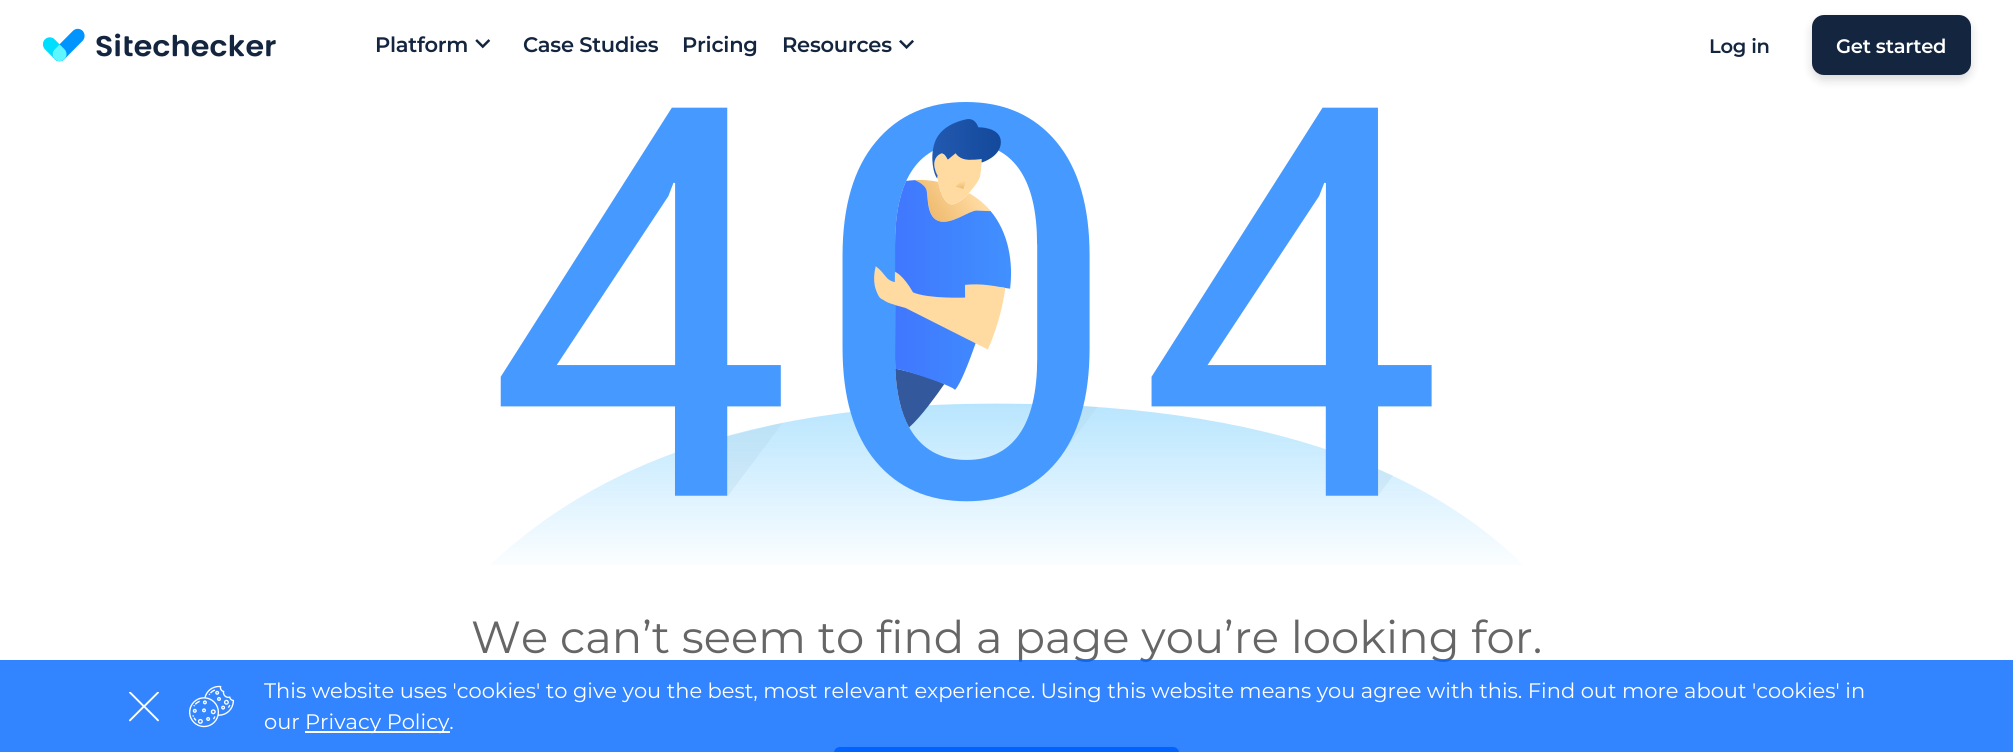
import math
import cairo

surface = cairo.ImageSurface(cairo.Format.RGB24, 2013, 752)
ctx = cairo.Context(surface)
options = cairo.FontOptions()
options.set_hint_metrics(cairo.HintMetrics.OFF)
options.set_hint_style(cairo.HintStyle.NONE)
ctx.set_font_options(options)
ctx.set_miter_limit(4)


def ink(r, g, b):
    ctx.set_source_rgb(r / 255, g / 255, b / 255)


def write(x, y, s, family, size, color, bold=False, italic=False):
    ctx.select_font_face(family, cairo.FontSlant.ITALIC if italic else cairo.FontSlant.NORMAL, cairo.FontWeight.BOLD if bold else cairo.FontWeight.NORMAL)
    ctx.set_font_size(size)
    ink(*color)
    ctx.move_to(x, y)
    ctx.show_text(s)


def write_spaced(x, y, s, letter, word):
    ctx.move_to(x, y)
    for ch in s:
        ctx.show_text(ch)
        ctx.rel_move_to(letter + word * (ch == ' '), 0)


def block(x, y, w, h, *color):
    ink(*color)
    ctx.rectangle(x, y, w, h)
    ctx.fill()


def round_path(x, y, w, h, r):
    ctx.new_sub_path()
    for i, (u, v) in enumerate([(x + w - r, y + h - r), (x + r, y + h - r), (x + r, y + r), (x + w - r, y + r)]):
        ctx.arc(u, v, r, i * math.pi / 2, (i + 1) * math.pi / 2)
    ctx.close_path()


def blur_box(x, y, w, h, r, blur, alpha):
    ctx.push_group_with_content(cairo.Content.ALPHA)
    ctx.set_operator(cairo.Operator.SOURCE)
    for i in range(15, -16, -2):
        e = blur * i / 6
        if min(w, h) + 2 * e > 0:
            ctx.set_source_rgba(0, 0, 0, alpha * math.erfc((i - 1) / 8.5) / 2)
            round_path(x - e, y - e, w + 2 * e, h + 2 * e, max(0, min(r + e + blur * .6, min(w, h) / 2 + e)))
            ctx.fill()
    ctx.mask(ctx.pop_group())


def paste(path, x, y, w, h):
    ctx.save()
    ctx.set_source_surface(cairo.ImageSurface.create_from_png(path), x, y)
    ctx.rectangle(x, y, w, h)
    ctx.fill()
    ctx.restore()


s1 = dict(family="Montserrat", size=45, color=(102, 102, 102))
s2 = dict(family="Montserrat", size=21, color=(255, 255, 255))

ink(255, 255, 255)
ctx.paint()
paste("pic1.png", 43, 28, 233, 34)
ctx.select_font_face("Montserrat SemiBold")
ctx.set_font_size(21)
ink(20, 37, 63)
write_spaced(375, 52, "Platform", -0.25, 0)
paste("pic2.png", 475, 39, 16, 10)
write_spaced(523, 52, "Case Studies", -0.25, 0)
write_spaced(682, 52, "Pricing", -0.25, 0)
write_spaced(782, 52, "Resources", -0.25, 0)
paste("pic3.png", 899, 39, 15, 10)
ctx.set_font_size(19.5)
write_spaced(1709, 53, "Log in", -0.25, 0)
ink(0, 0, 0)
blur_box(1812, 20, 159, 60, 12, 5, 0.15)
ink(20, 37, 63)
round_path(1812, 15, 159, 60, 12)
ctx.fill()
ink(255, 255, 255)
write_spaced(1836, 53, "Get started", -0.25, 0)
paste("pic4.png", 491, 102, 1031, 463)
write(471, 653, "We can’t seem to find a page you’re looking for.", **s1)
ink(0, 102, 255)
blur_box(834, 749, 345, 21, 6, 4, 0.12)
ink(0, 89, 252)
round_path(834, 747, 345, 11, 6)
ctx.fill()
ctx.set_source_rgba(0, 0.4, 1, 0.8)
ctx.rectangle(0, 660, 2013, 92)
ctx.fill()
paste("pic5.png", 129, 692, 30, 30)
paste("pic6.png", 189, 685, 45, 43)
write(264, 698, "This website uses 'cookies' to give you the best, most relevant experience. Using this website means you agree with this. Find out more about 'cookies' in", **s2)
write(264, 729, "our", **s2)
block(305, 731, 145, 2, 255, 255, 255)
write(305, 729, "Privacy Policy.", **s2)
surface.write_to_png("screenshot.png")
